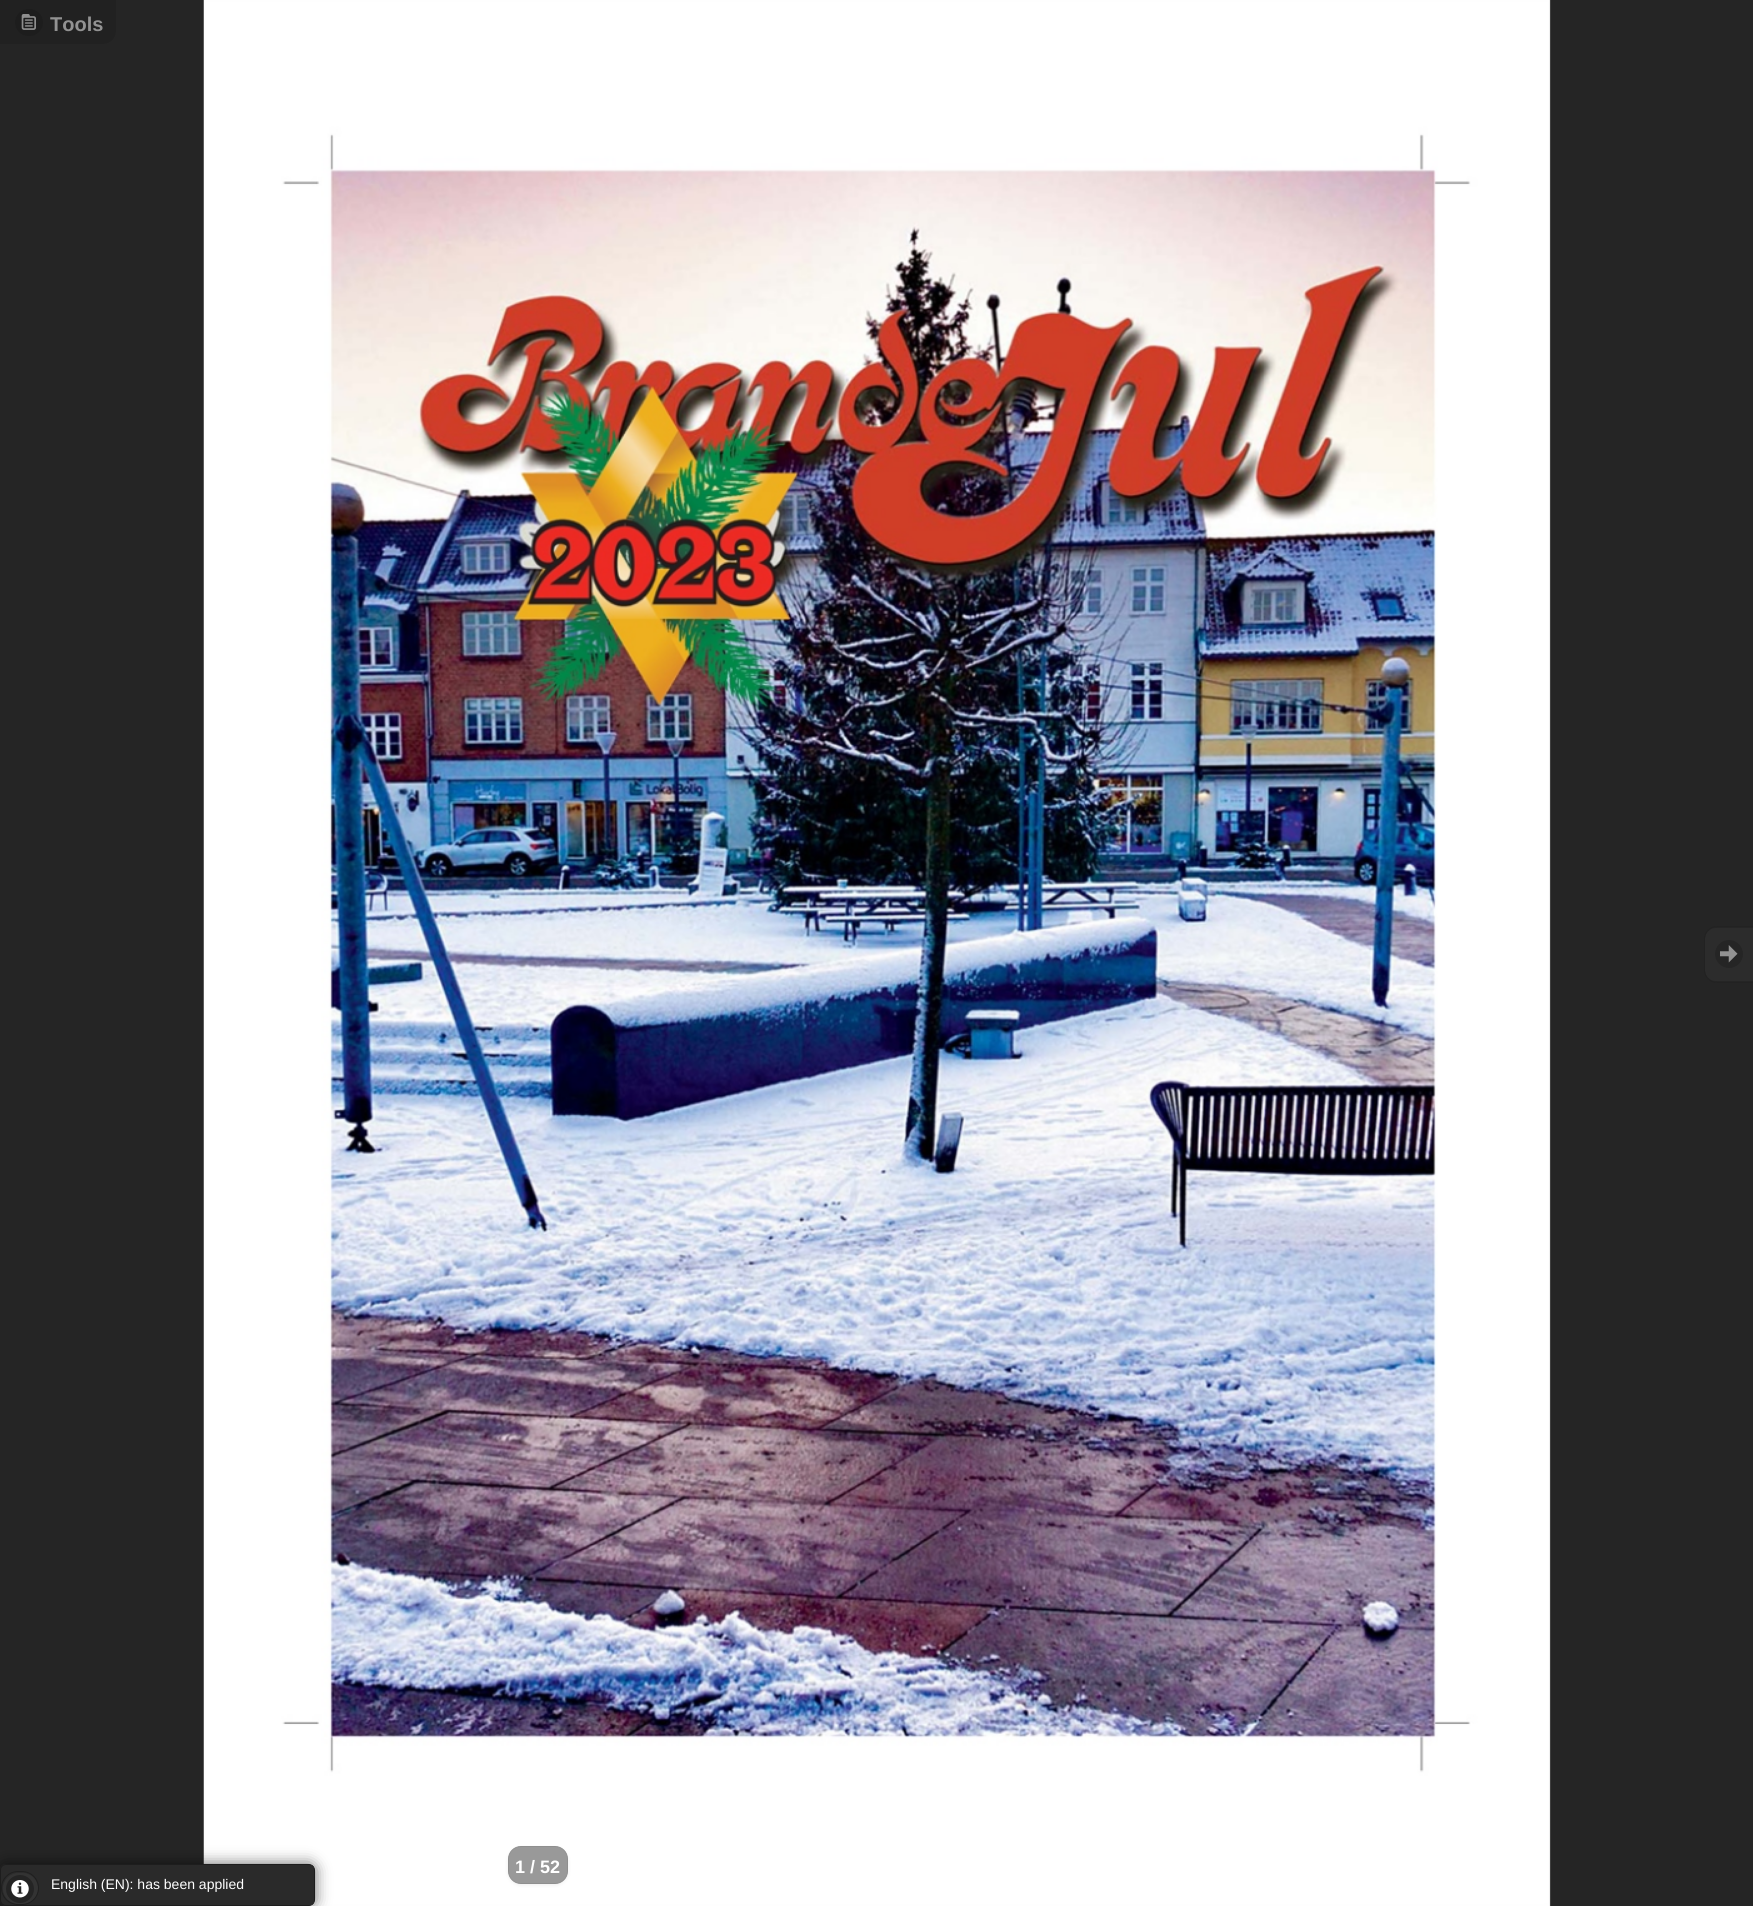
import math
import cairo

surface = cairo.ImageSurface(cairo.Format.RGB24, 1753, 1906)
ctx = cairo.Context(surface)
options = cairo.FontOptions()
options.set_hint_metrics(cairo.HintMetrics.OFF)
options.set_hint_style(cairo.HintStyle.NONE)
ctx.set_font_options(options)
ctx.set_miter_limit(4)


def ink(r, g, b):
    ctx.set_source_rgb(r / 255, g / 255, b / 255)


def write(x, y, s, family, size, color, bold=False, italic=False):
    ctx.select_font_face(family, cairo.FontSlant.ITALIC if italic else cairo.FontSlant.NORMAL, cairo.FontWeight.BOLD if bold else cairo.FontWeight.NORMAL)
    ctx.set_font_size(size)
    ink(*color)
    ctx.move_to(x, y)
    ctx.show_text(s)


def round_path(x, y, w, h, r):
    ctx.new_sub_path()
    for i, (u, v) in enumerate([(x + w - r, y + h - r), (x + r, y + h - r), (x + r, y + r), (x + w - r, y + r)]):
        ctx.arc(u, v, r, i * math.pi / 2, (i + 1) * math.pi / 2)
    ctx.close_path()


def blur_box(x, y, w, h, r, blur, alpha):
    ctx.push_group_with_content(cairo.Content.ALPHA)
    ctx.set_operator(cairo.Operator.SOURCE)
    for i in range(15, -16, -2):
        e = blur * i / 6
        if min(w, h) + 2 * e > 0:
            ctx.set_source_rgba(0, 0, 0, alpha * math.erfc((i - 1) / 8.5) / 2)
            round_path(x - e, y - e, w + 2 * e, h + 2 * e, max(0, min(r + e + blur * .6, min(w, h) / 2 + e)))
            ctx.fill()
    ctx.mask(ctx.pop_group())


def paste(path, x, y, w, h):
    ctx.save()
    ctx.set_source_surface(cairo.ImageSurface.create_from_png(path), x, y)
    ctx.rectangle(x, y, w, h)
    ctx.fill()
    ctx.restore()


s1 = dict(family="Liberation Sans", size=20, color=(146, 146, 146), bold=True)
s2 = dict(family="Liberation Sans", size=18, color=(255, 255, 255), bold=True)
s3 = dict(family="Liberation Sans", size=14, color=(255, 255, 255))

ink(37, 37, 37)
ctx.paint()
ink(33, 33, 33)
ctx.new_path()
ctx.move_to(0, 0)
ctx.line_to(116, 0)
ctx.line_to(116, 31)
ctx.curve_to(116, 38, 110, 44, 103, 44)
ctx.line_to(0, 44)
ctx.close_path()
ctx.fill()
ink(29, 29, 29)
round_path(15, 9, 28, 27, 13.5)
ctx.fill()
paste("pic1.png", 21, 14, 15, 16)
write(50, 31, "Tools", **s1)
paste("pic2.png", 203, 0, 1348, 1906)
ink(44, 44, 44)
ctx.new_path()
ctx.move_to(1716, 928)
ctx.line_to(1753, 928)
ctx.line_to(1753, 981)
ctx.line_to(1716, 981)
ctx.curve_to(1710, 981, 1705, 976, 1705, 970)
ctx.line_to(1705, 939)
ctx.curve_to(1705, 933, 1710, 928, 1716, 928)
ctx.close_path()
ctx.fill()
ctx.new_path()
ctx.move_to(1717, 926.5)
ctx.line_to(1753.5, 926.5)
ctx.line_to(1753.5, 982.5)
ctx.line_to(1717, 982.5)
ctx.curve_to(1710, 982.5, 1704.5, 977, 1704.5, 970)
ctx.line_to(1704.5, 939)
ctx.curve_to(1704.5, 932, 1710, 926.5, 1717, 926.5)
ctx.close_path()
ink(34, 34, 34)
ctx.set_line_width(1)
ctx.stroke()
ink(37, 37, 37)
ctx.arc(1729, 954, 14, 0, 2 * math.pi)
ctx.fill()
paste("pic3.png", 1720, 945, 18, 18)
ink(128, 128, 128)
blur_box(508, 1848, 60, 37, 13, 2, 0.15)
ink(153, 153, 153)
round_path(508.5, 1846.5, 59, 37, 12.5)
ctx.fill_preserve()
ink(143, 143, 143)
ctx.stroke()
write(515, 1873, "1 / 52", **s2)
ctx.save()
ctx.set_fill_rule(cairo.FillRule.EVEN_ODD)
ctx.new_path()
ctx.move_to(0, 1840)
ctx.line_to(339, 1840)
ctx.line_to(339, 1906)
ctx.line_to(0, 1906)
ctx.close_path()
ctx.move_to(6, 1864)
ctx.line_to(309, 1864)
ctx.curve_to(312.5, 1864, 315, 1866.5, 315, 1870)
ctx.line_to(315, 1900)
ctx.curve_to(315, 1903.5, 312.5, 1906, 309, 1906)
ctx.line_to(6, 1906)
ctx.curve_to(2.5, 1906, 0, 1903.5, 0, 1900)
ctx.line_to(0, 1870)
ctx.curve_to(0, 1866.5, 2.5, 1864, 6, 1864)
ctx.close_path()
ctx.clip()
ink(0, 0, 0)
blur_box(0, 1864, 315, 42, 6, 7.5, 0.6)
ctx.restore()
ink(42, 42, 42)
round_path(0.5, 1864.5, 314, 41, 5.5)
ctx.fill_preserve()
ink(29, 29, 29)
ctx.stroke()
ink(51, 51, 51)
round_path(3, 1873, 35, 31, 15.5)
ctx.fill()
round_path(1.5, 1871.5, 37, 33, 16.5)
ink(31, 31, 31)
ctx.stroke()
ink(36, 36, 36)
ctx.arc(20, 1889, 14, 0, 2 * math.pi)
ctx.fill()
paste("pic4.png", 11, 1880, 18, 18)
write(51, 1889, "English (EN): has been applied", **s3)
surface.write_to_png("screenshot.png")
